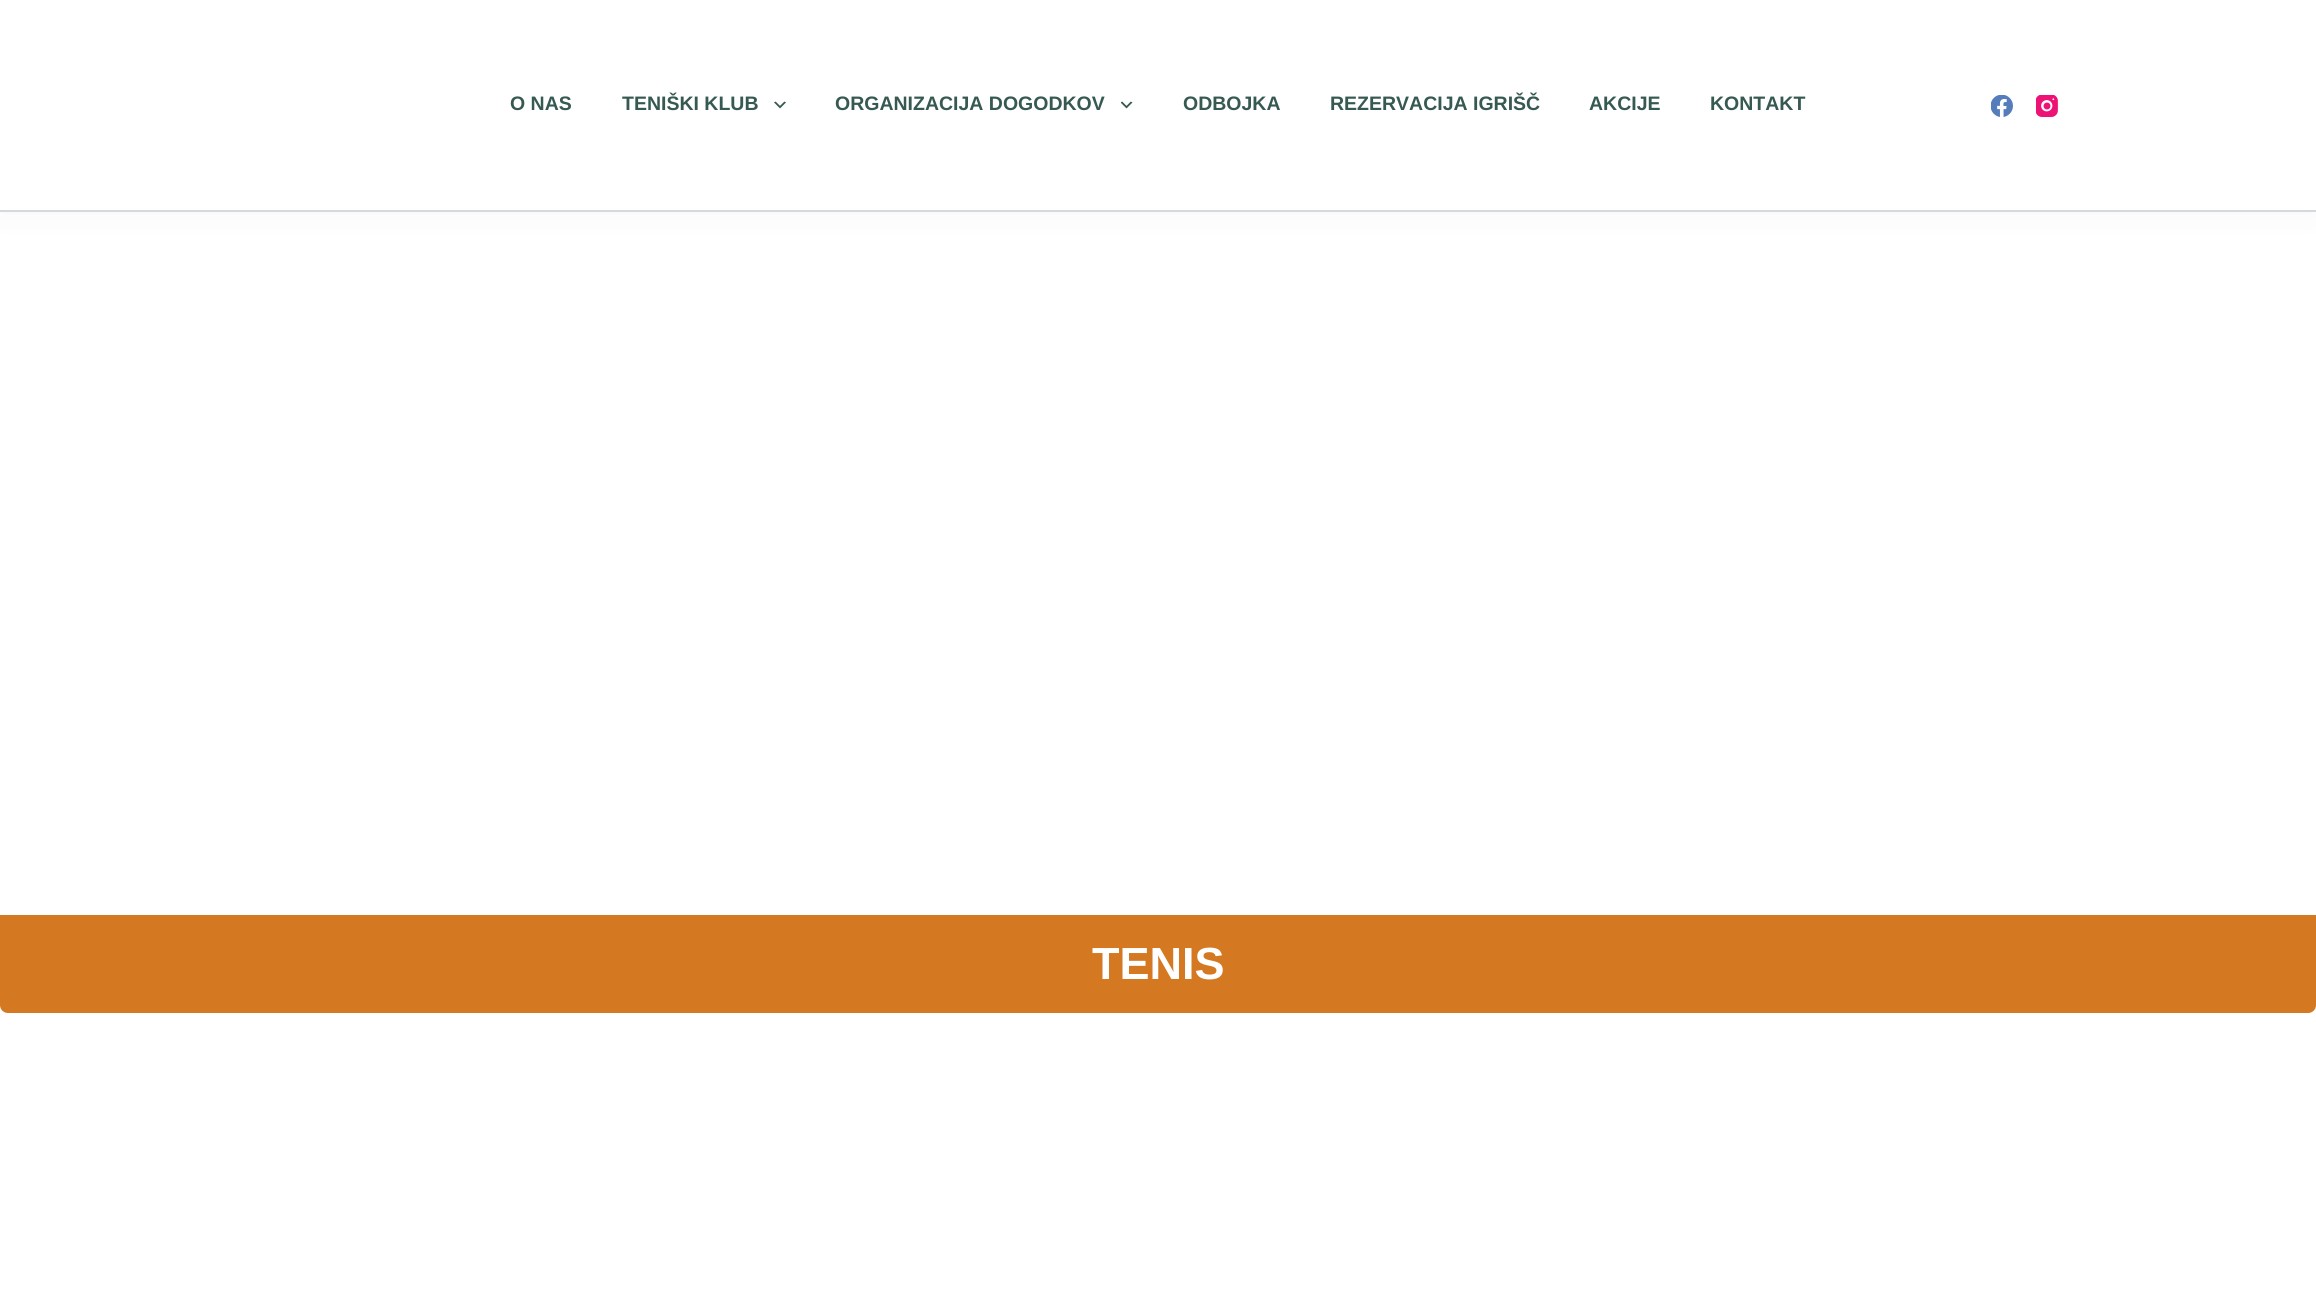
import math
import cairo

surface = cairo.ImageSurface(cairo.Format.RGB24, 2316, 1308)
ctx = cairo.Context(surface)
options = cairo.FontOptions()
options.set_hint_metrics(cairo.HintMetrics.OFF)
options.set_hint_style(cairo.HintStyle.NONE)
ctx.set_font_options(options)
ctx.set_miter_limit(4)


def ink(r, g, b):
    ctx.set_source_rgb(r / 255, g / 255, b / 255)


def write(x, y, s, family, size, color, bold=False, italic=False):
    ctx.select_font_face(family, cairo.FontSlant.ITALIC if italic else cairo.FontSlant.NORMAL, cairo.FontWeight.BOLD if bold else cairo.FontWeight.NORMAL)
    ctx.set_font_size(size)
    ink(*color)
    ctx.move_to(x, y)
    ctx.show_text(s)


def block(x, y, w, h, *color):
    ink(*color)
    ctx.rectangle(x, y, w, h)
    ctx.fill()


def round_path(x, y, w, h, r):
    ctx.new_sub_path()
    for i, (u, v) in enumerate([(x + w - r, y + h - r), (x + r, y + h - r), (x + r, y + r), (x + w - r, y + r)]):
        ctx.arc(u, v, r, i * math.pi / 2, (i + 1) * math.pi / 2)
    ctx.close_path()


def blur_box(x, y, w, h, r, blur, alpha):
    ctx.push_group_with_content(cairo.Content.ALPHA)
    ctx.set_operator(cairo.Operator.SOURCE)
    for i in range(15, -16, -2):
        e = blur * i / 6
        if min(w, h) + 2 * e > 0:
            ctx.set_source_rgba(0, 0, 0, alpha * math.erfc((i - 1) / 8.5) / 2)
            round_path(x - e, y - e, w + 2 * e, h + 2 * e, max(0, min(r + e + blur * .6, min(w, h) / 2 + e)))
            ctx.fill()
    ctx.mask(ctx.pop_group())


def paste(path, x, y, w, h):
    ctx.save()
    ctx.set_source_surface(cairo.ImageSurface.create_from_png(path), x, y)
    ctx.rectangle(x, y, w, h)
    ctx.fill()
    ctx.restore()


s1 = dict(family="Liberation Sans", size=19.5, color=(54, 89, 81), bold=True)
s2 = dict(family="Liberation Sans", size=45, color=(255, 255, 255), bold=True)

ink(255, 255, 255)
ctx.paint()
ink(44, 62, 80)
blur_box(0, 0, 2316, 212, 0, 15, 0.05)
block(0, 0, 2316, 210, 255, 255, 255)
block(0, 210, 2316, 2, 213, 216, 220)
write(510, 110, "O NAS", **s1)
write(622, 110, "TENIŠKI KLUB", **s1)
paste("pic1.png", 774, 101, 12, 8)
write(835, 110, "ORGANIZACIJA DOGODKOV", **s1)
paste("pic2.png", 1121, 101, 12, 8)
write(1183, 110, "ODBOJKA", **s1)
write(1330, 110, "REZERVACIJA IGRIŠČ", **s1)
write(1589, 110, "AKCIJE", **s1)
write(1710, 110, "KONTAKT", **s1)
paste("pic3.png", 1991, 95, 22, 22)
paste("pic4.png", 2036, 95, 22, 22)
ink(213, 120, 34)
ctx.new_path()
ctx.move_to(0, 915)
ctx.line_to(2316, 915)
ctx.line_to(2316, 1005)
ctx.curve_to(2316, 1009.5, 2312.5, 1013, 2308, 1013)
ctx.line_to(8, 1013)
ctx.curve_to(3.5, 1013, 0, 1009.5, 0, 1005)
ctx.close_path()
ctx.fill()
write(1092, 979, "TENIS", **s2)
surface.write_to_png("screenshot.png")
